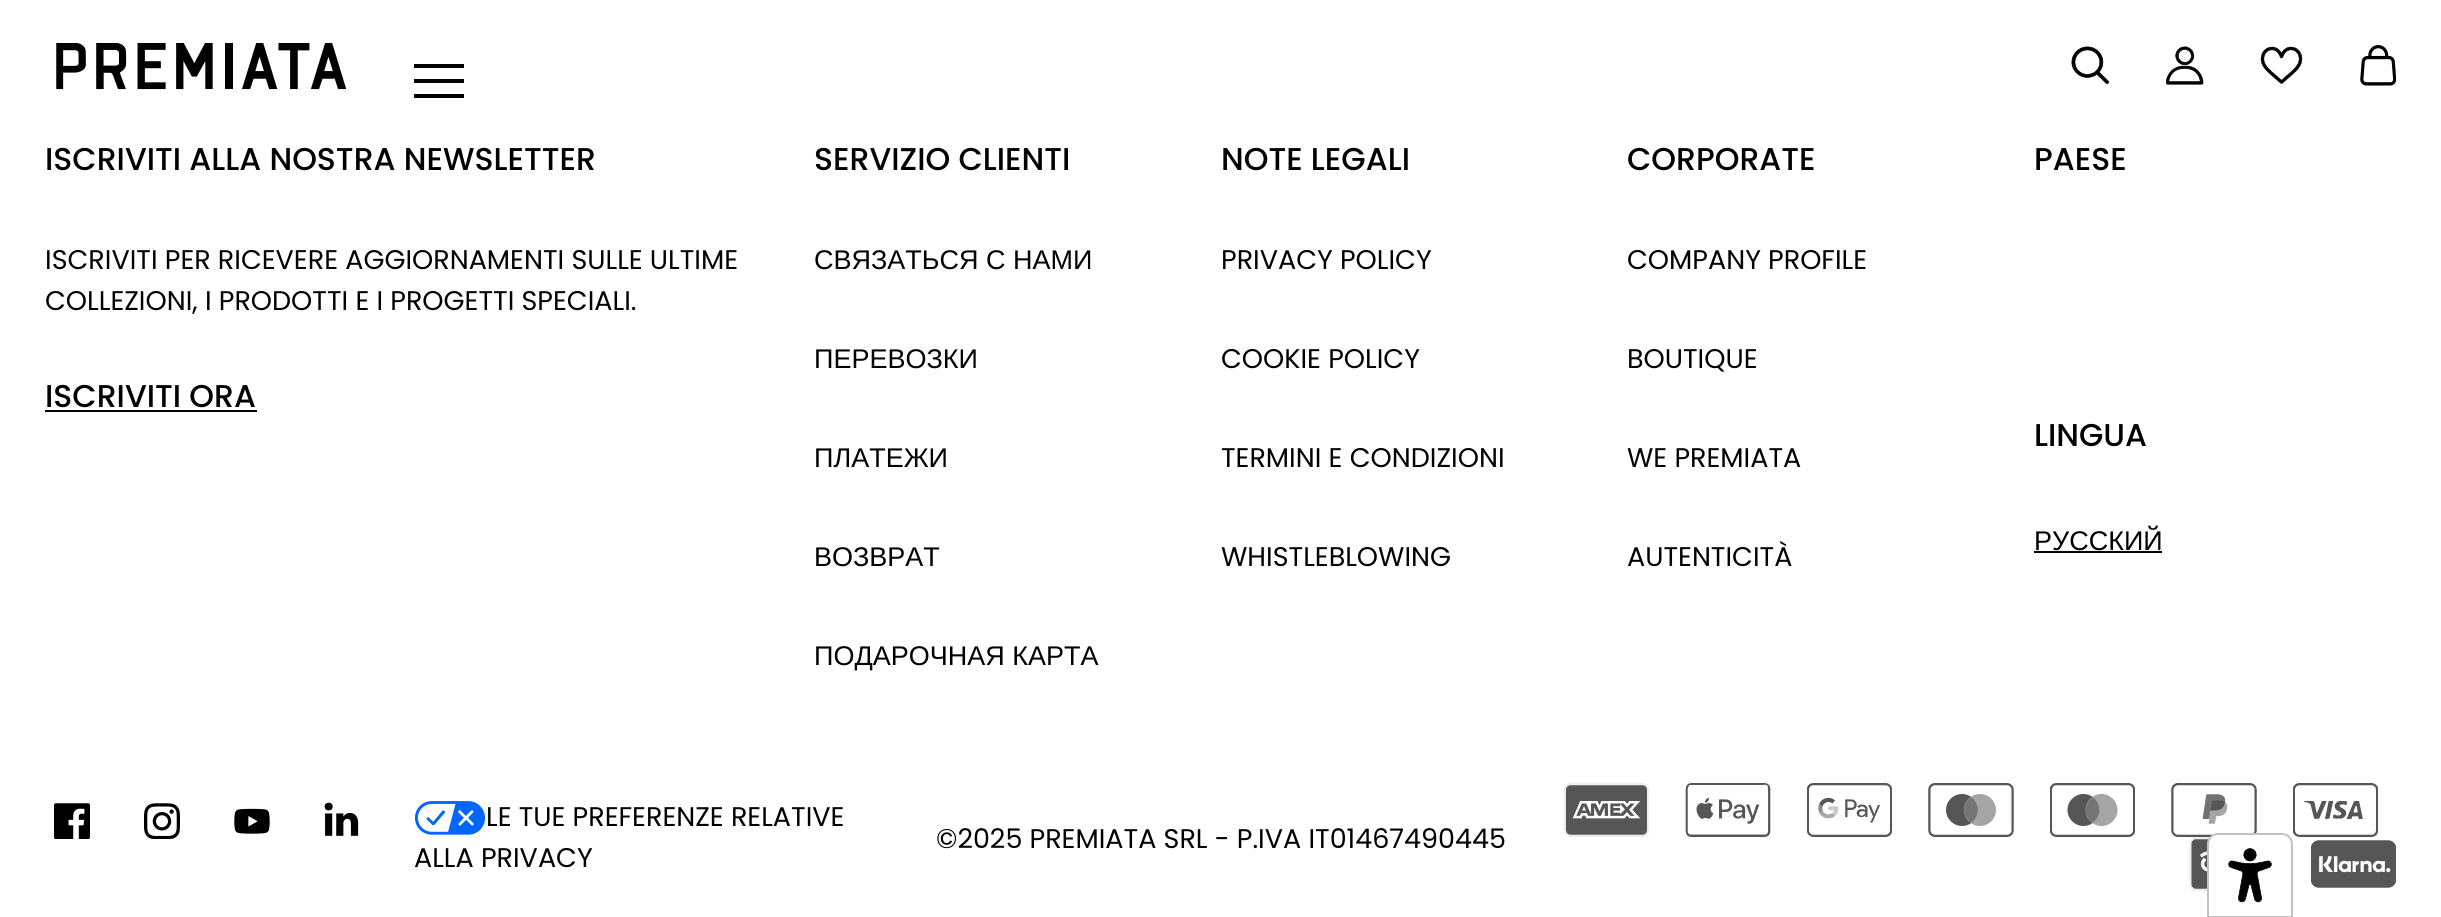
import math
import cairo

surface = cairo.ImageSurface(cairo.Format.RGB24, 2441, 917)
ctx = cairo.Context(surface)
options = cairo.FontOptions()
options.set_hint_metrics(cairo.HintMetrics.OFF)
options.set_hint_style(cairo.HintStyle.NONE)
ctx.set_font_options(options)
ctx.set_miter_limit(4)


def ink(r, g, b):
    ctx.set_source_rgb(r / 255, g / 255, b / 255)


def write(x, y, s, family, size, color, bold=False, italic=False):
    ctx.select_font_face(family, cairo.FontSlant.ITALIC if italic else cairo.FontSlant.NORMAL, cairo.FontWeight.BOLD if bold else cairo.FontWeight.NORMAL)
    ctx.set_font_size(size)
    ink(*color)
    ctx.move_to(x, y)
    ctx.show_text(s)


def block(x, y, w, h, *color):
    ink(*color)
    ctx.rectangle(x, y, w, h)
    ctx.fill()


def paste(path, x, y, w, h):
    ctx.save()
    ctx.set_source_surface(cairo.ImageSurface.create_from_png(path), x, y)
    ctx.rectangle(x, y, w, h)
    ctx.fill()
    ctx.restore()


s1 = dict(family="Poppins Medium", size=31.5, color=(0, 0, 0))
s2 = dict(family="Poppins", size=27, color=(0, 0, 0))
s3 = dict(family="Liberation Sans", size=27, color=(0, 0, 0))

ink(255, 255, 255)
ctx.paint()
paste("pic1.png", 56, 43, 291, 47)
ink(0, 0, 0)
ctx.new_path()
ctx.move_to(414, 68)
ctx.line_to(414, 64)
ctx.line_to(464, 64)
ctx.line_to(464, 68)
ctx.close_path()
ctx.move_to(414, 83)
ctx.line_to(414, 79)
ctx.line_to(464, 79)
ctx.line_to(464, 83)
ctx.close_path()
ctx.move_to(414, 98)
ctx.line_to(414, 94)
ctx.line_to(464, 94)
ctx.line_to(464, 98)
ctx.close_path()
ctx.fill()
paste("pic2.png", 2071, 46, 38, 38)
paste("pic3.png", 2165, 46, 39, 39)
paste("pic4.png", 2260, 46, 43, 38)
paste("pic5.png", 2360, 45, 36, 41)
write(45, 170, "ISCRIVITI ALLA NOSTRA NEWSLETTER", **s1)
write(45, 269, "ISCRIVITI PER RICEVERE AGGIORNAMENTI SULLE ULTIME", **s2)
write(45, 310, "COLLEZIONI, I PRODOTTI E I PROGETTI SPECIALI.", **s2)
write(45, 407, "ISCRIVITI ORA", **s1)
block(45, 410, 212, 2, 0, 0, 0)
write(814, 170, "SERVIZIO CLIENTI", **s1)
write(814, 269, "СВЯЗАТЬСЯ С НАМИ", **s3)
write(814, 368, "ПЕРЕВОЗКИ", **s3)
write(814, 467, "ПЛАТЕЖИ", **s3)
write(814, 566, "ВОЗВРАТ", **s3)
write(814, 665, "ПОДАРОЧНАЯ КАРТА", **s3)
write(1221, 170, "NOTE LEGALI", **s1)
write(1221, 269, "PRIVACY POLICY", **s2)
write(1221, 368, "COOKIE POLICY", **s2)
write(1221, 467, "TERMINI E CONDIZIONI", **s2)
write(1221, 566, "WHISTLEBLOWING", **s2)
write(1627, 170, "CORPORATE", **s1)
write(1627, 269, "COMPANY PROFILE", **s2)
write(1627, 368, "BOUTIQUE", **s2)
write(1627, 467, "WE PREMIATA", **s2)
write(1627, 566, "AUTENTICITÀ", **s2)
write(2034, 170, "PAESE", **s1)
write(2034, 446, "LINGUA", **s1)
write(2034, 550, "РУССКИЙ", **s3)
block(2034, 551, 128, 2, 0, 0, 0)
paste("pic6.png", 54, 803, 36, 36)
paste("pic7.png", 144, 803, 36, 36)
paste("pic8.png", 234, 808, 36, 26)
paste("pic9.png", 324, 802, 35, 34)
paste("pic10.png", 415, 801, 70, 34)
write(486, 826, "LE TUE PREFERENZE RELATIVE", **s2)
write(414, 867, "ALLA PRIVACY", **s2)
write(936, 848, "©2025 PREMIATA SRL - P.IVA IT01467490445", **s2)
paste("pic11.png", 1564, 783, 85, 54)
paste("pic12.png", 1685, 783, 86, 54)
paste("pic13.png", 1807, 783, 85, 54)
paste("pic14.png", 1928, 783, 86, 54)
paste("pic15.png", 2050, 783, 85, 54)
paste("pic16.png", 2171, 783, 86, 54)
paste("pic17.png", 2293, 783, 85, 54)
paste("pic18.png", 2189, 837, 21, 54)
paste("pic19.png", 2311, 840, 85, 48)
ink(255, 255, 255)
ctx.new_path()
ctx.move_to(2218, 833)
ctx.line_to(2282, 833)
ctx.curve_to(2288, 833, 2293, 838, 2293, 844)
ctx.line_to(2293, 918)
ctx.line_to(2207, 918)
ctx.line_to(2207, 844)
ctx.curve_to(2207, 838, 2212, 833, 2218, 833)
ctx.close_path()
ctx.fill()
paste("pic20.png", 2228, 848, 44, 55)
ctx.new_path()
ctx.move_to(2218, 834)
ctx.line_to(2282, 834)
ctx.curve_to(2287.5, 834, 2292, 838.5, 2292, 844)
ctx.line_to(2292, 917)
ctx.line_to(2208, 917)
ctx.line_to(2208, 844)
ctx.curve_to(2208, 838.5, 2212.5, 834, 2218, 834)
ctx.close_path()
ctx.set_source_rgba(0, 0, 0, 0.24)
ctx.stroke()
surface.write_to_png("screenshot.png")
